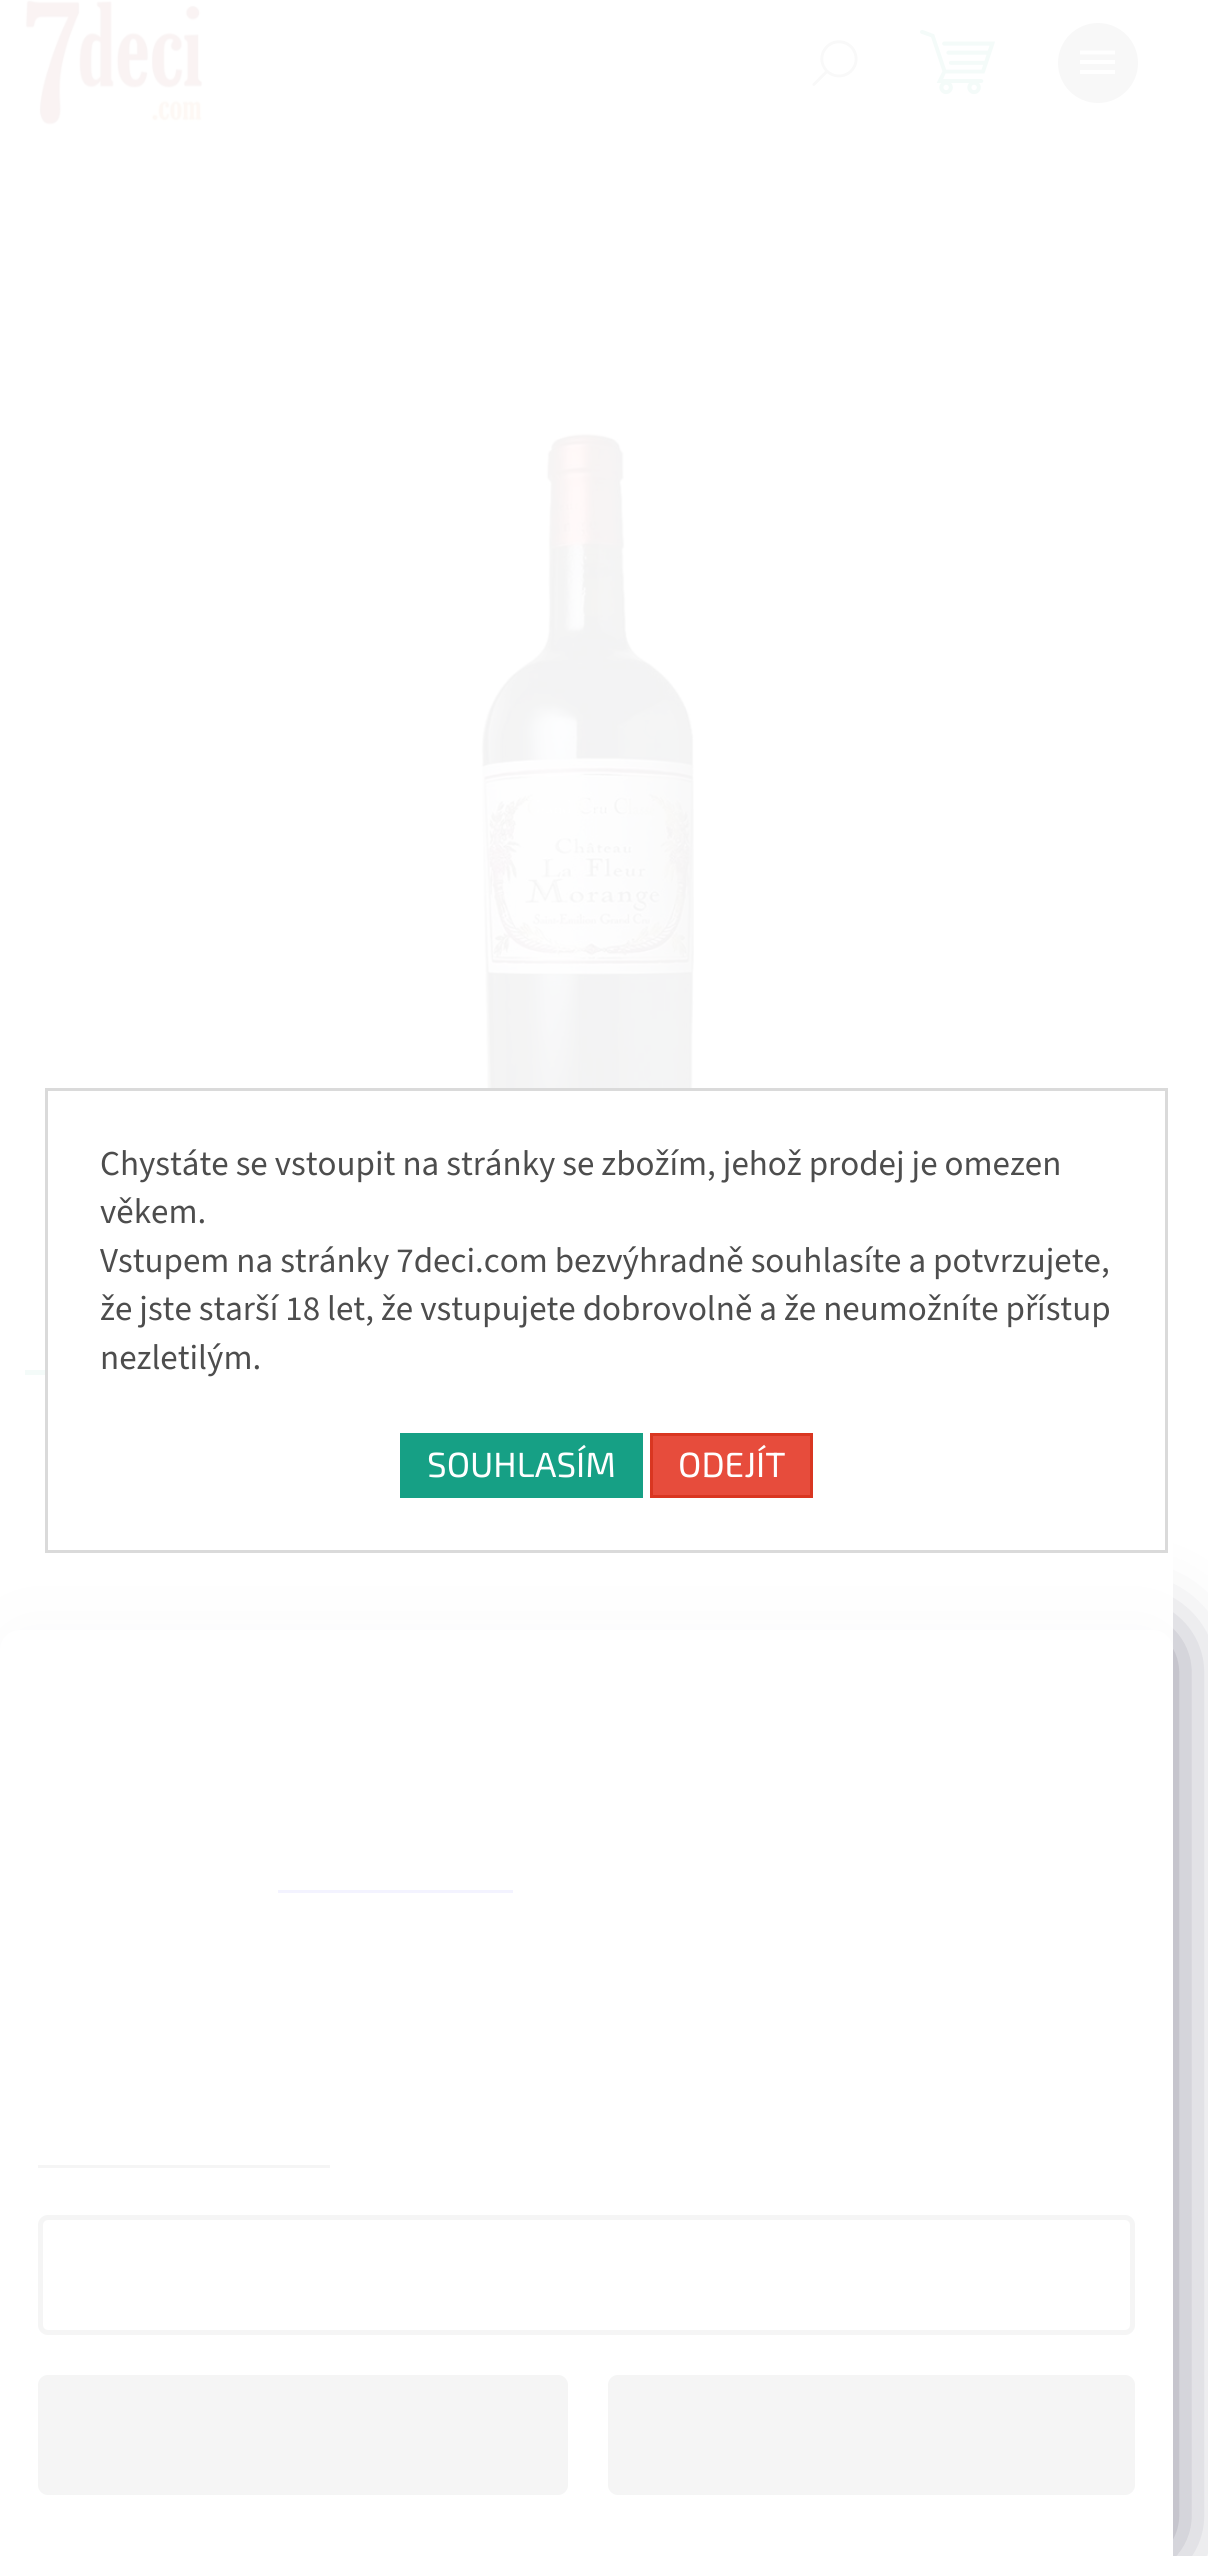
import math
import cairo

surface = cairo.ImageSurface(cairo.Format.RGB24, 1208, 2556)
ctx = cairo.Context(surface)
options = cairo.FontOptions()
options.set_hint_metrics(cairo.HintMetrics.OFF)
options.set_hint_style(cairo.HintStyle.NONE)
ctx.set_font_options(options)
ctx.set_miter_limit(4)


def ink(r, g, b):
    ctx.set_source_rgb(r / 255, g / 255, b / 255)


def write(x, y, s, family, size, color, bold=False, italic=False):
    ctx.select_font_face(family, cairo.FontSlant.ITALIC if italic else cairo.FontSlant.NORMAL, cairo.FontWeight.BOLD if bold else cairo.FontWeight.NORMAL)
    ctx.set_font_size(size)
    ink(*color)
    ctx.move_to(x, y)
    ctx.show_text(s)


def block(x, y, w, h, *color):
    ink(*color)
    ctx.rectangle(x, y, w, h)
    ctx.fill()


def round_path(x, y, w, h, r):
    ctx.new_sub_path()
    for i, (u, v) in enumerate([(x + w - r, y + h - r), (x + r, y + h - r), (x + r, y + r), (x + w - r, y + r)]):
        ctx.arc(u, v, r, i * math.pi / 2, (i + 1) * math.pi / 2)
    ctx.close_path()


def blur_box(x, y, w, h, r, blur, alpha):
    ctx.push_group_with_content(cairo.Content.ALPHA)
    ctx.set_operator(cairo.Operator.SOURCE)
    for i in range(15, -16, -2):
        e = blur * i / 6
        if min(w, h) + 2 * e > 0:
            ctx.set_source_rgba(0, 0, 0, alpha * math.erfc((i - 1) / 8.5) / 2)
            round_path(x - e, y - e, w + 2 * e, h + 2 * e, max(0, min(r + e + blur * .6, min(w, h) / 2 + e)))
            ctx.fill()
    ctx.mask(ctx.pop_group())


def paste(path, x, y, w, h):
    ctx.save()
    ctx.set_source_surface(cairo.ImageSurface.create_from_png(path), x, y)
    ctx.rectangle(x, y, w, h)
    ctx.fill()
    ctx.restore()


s1 = dict(family="Source Sans 3", size=35, color=(77, 77, 77))
s2 = dict(family="Exo 2", size=35, color=(255, 255, 255))

ink(255, 255, 255)
ctx.paint()
paste("pic1.png", 25, 0, 178, 125)
paste("pic2.png", 920, 29, 75, 66)
paste("pic3.png", 812, 40, 46, 46)
ink(102, 102, 102)
ctx.arc(1098, 63, 40, 0, 2 * math.pi)
ctx.fill()
ink(255, 255, 255)
ctx.new_path()
ctx.move_to(1080, 74)
ctx.line_to(1115, 74)
ctx.line_to(1115, 70)
ctx.line_to(1080, 70)
ctx.close_path()
ctx.move_to(1080, 64)
ctx.line_to(1115, 64)
ctx.line_to(1115, 60)
ctx.line_to(1080, 60)
ctx.close_path()
ctx.move_to(1080, 50.5)
ctx.line_to(1080, 54.5)
ctx.line_to(1115, 54.5)
ctx.line_to(1115, 50.5)
ctx.close_path()
ctx.fill()
paste("pic4.png", 481, 432, 215, 656)
block(25, 1370, 20, 5, 22, 160, 133)
ink(27, 25, 57)
blur_box(0, 1630, 1173, 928, 20, 37.5, 0.5)
ink(248, 250, 251)
ctx.new_path()
ctx.move_to(20, 1630)
ctx.line_to(1153, 1630)
ctx.curve_to(1164, 1630, 1173, 1639, 1173, 1650)
ctx.line_to(1173, 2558)
ctx.line_to(0, 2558)
ctx.line_to(0, 1650)
ctx.curve_to(0, 1639, 9, 1630, 20, 1630)
ctx.close_path()
ctx.fill()
block(278, 1890, 235, 3, 0, 0, 255)
block(38, 2165, 292, 3, 37, 37, 37)
round_path(40.5, 2217.5, 1092, 115, 7.5)
ctx.set_line_width(5)
ctx.stroke()
round_path(38, 2375, 530, 120, 10)
ctx.fill()
round_path(608, 2375, 527, 120, 10)
ctx.fill()
ctx.set_source_rgba(1, 1, 1, 0.95)
ctx.rectangle(0, 0, 1173, 2556)
ctx.fill()
ctx.rectangle(46.5, 1089.5, 1120, 462)
ink(218, 218, 218)
ctx.set_line_width(3)
ctx.stroke()
write(100, 1175, "Chystáte se vstoupit na stránky se zbožím, jehož prodej je omezen", **s1)
write(100, 1223, "věkem.", **s1)
write(100, 1272, "Vstupem na stránky 7deci.com bezvýhradně souhlasíte a potvrzujete,", **s1)
write(100, 1320, "že jste starší 18 let, že vstupujete dobrovolně a že neumožníte přístup", **s1)
write(100, 1369, "nezletilým.", **s1)
block(400, 1433, 243, 65, 22, 160, 133)
write(427, 1477, "SOUHLASÍM", **s2)
ink(231, 76, 60)
ctx.rectangle(651.5, 1434.5, 160, 62)
ctx.fill_preserve()
ink(217, 54, 33)
ctx.stroke()
write(678, 1477, "ODEJÍT", **s2)
surface.write_to_png("screenshot.png")
